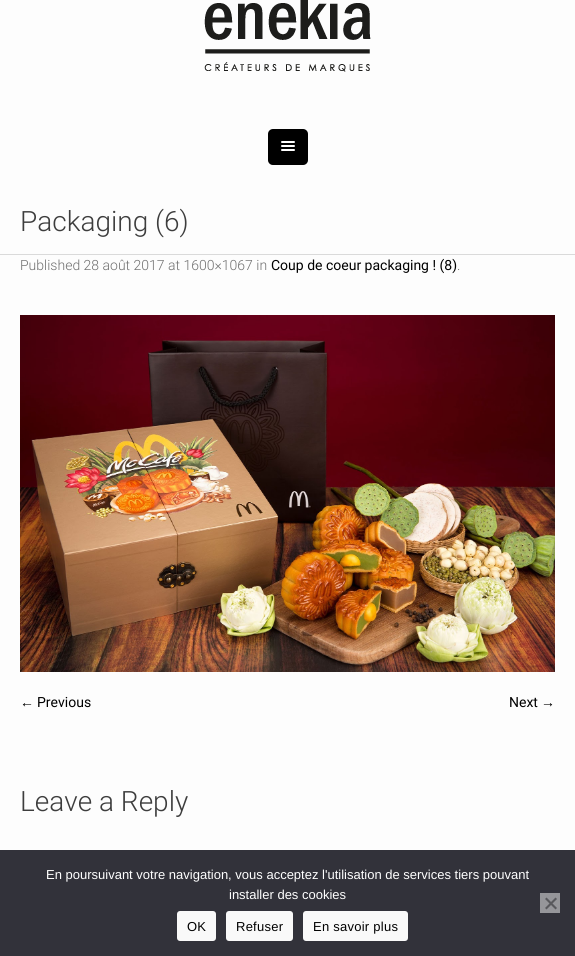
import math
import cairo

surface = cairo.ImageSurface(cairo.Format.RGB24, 575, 956)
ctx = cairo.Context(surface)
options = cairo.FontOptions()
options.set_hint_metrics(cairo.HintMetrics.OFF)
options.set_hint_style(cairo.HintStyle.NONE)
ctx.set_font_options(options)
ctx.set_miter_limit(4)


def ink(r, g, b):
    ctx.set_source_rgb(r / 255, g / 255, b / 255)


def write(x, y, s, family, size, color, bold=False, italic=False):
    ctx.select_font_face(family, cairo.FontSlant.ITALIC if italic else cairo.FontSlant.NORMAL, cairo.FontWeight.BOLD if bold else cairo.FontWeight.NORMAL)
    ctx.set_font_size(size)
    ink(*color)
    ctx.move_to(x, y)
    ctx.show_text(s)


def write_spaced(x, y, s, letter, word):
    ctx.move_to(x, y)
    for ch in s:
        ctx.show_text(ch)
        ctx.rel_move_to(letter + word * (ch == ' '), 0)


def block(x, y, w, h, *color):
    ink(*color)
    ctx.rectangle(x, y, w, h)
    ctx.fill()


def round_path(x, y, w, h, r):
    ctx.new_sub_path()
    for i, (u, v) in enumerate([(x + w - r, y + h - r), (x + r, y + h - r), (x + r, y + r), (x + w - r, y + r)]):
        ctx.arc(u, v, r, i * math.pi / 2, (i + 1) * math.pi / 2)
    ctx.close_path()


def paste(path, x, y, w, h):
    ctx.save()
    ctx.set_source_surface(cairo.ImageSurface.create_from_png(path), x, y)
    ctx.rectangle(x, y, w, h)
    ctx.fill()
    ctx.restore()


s1 = dict(family="Roboto Light", size=28, color=(61, 61, 61))
s2 = dict(family="Roboto Light", size=14, color=(112, 112, 112))
s3 = dict(family="Roboto", size=14, color=(0, 0, 0))
s4 = dict(family="Liberation Sans", size=14, color=(0, 0, 0))
s5 = dict(family="Liberation Sans", size=13, color=(255, 255, 255))

ink(253, 253, 253)
ctx.paint()
paste("pic1.png", 204, 0, 167, 72)
ink(0, 0, 0)
round_path(268, 129, 40, 36, 5)
ctx.fill()
ctx.set_source_rgba(0, 0, 0, 0.2)
ctx.new_path()
ctx.move_to(268, 157)
ctx.curve_to(268, 165, 270, 165, 278, 165)
ctx.line_to(298, 165)
ctx.curve_to(306, 165, 308, 165, 308, 157)
ctx.curve_to(308, 160, 306, 162, 303, 162)
ctx.line_to(273, 162)
ctx.curve_to(270, 162, 268, 160, 268, 157)
ctx.close_path()
ctx.fill()
paste("pic2.png", 281, 141, 14, 10)
block(0, 254, 575, 1, 218, 218, 218)
write(20, 231, "Packaging (6)", **s1)
write(20, 270, "Published 28 août 2017 at 1600×1067 in", **s2)
write(271, 270, "Coup de coeur packaging ! (8)", **s3)
write(457, 270, ".", **s2)
paste("pic3.png", 20, 315, 535, 357)
write(20, 707, "←", **s4)
write(37, 707, "Previous", **s3)
write(509, 707, "Next", **s3)
write(541, 707, "→", **s4)
write(20, 811, "Leave a Reply", **s1)
block(0, 850, 575, 106, 50, 50, 58)
write(46, 879, "En poursuivant votre navigation, vous acceptez l'utilisation de services tiers pouvant", **s5)
write(229, 899, "installer des cookies", **s5)
block(540, 893, 20, 20, 150, 150, 154)
ink(89, 89, 93)
ctx.new_path()
ctx.move_to(555.5, 897.5)
ctx.line_to(557, 899)
ctx.line_to(546.5, 909.5)
ctx.line_to(545, 908)
ctx.close_path()
ctx.fill()
ctx.new_path()
ctx.move_to(545, 899)
ctx.line_to(546.5, 897.5)
ctx.line_to(557, 908)
ctx.line_to(555.5, 909.5)
ctx.close_path()
ctx.fill()
ink(249, 249, 249)
round_path(177, 911, 39, 30, 3)
ctx.fill()
ink(0, 0, 0)
write_spaced(187, 931, "OK", 0.25, 0)
ink(249, 249, 249)
round_path(226, 911, 67, 30, 3)
ctx.fill()
ink(0, 0, 0)
write_spaced(236, 931, "Refuser", 0.25, 0)
ink(249, 249, 249)
round_path(303, 911, 105, 30, 3)
ctx.fill()
ink(0, 0, 0)
write_spaced(313, 931, "En savoir plus", 0.25, 0)
surface.write_to_png("screenshot.png")
